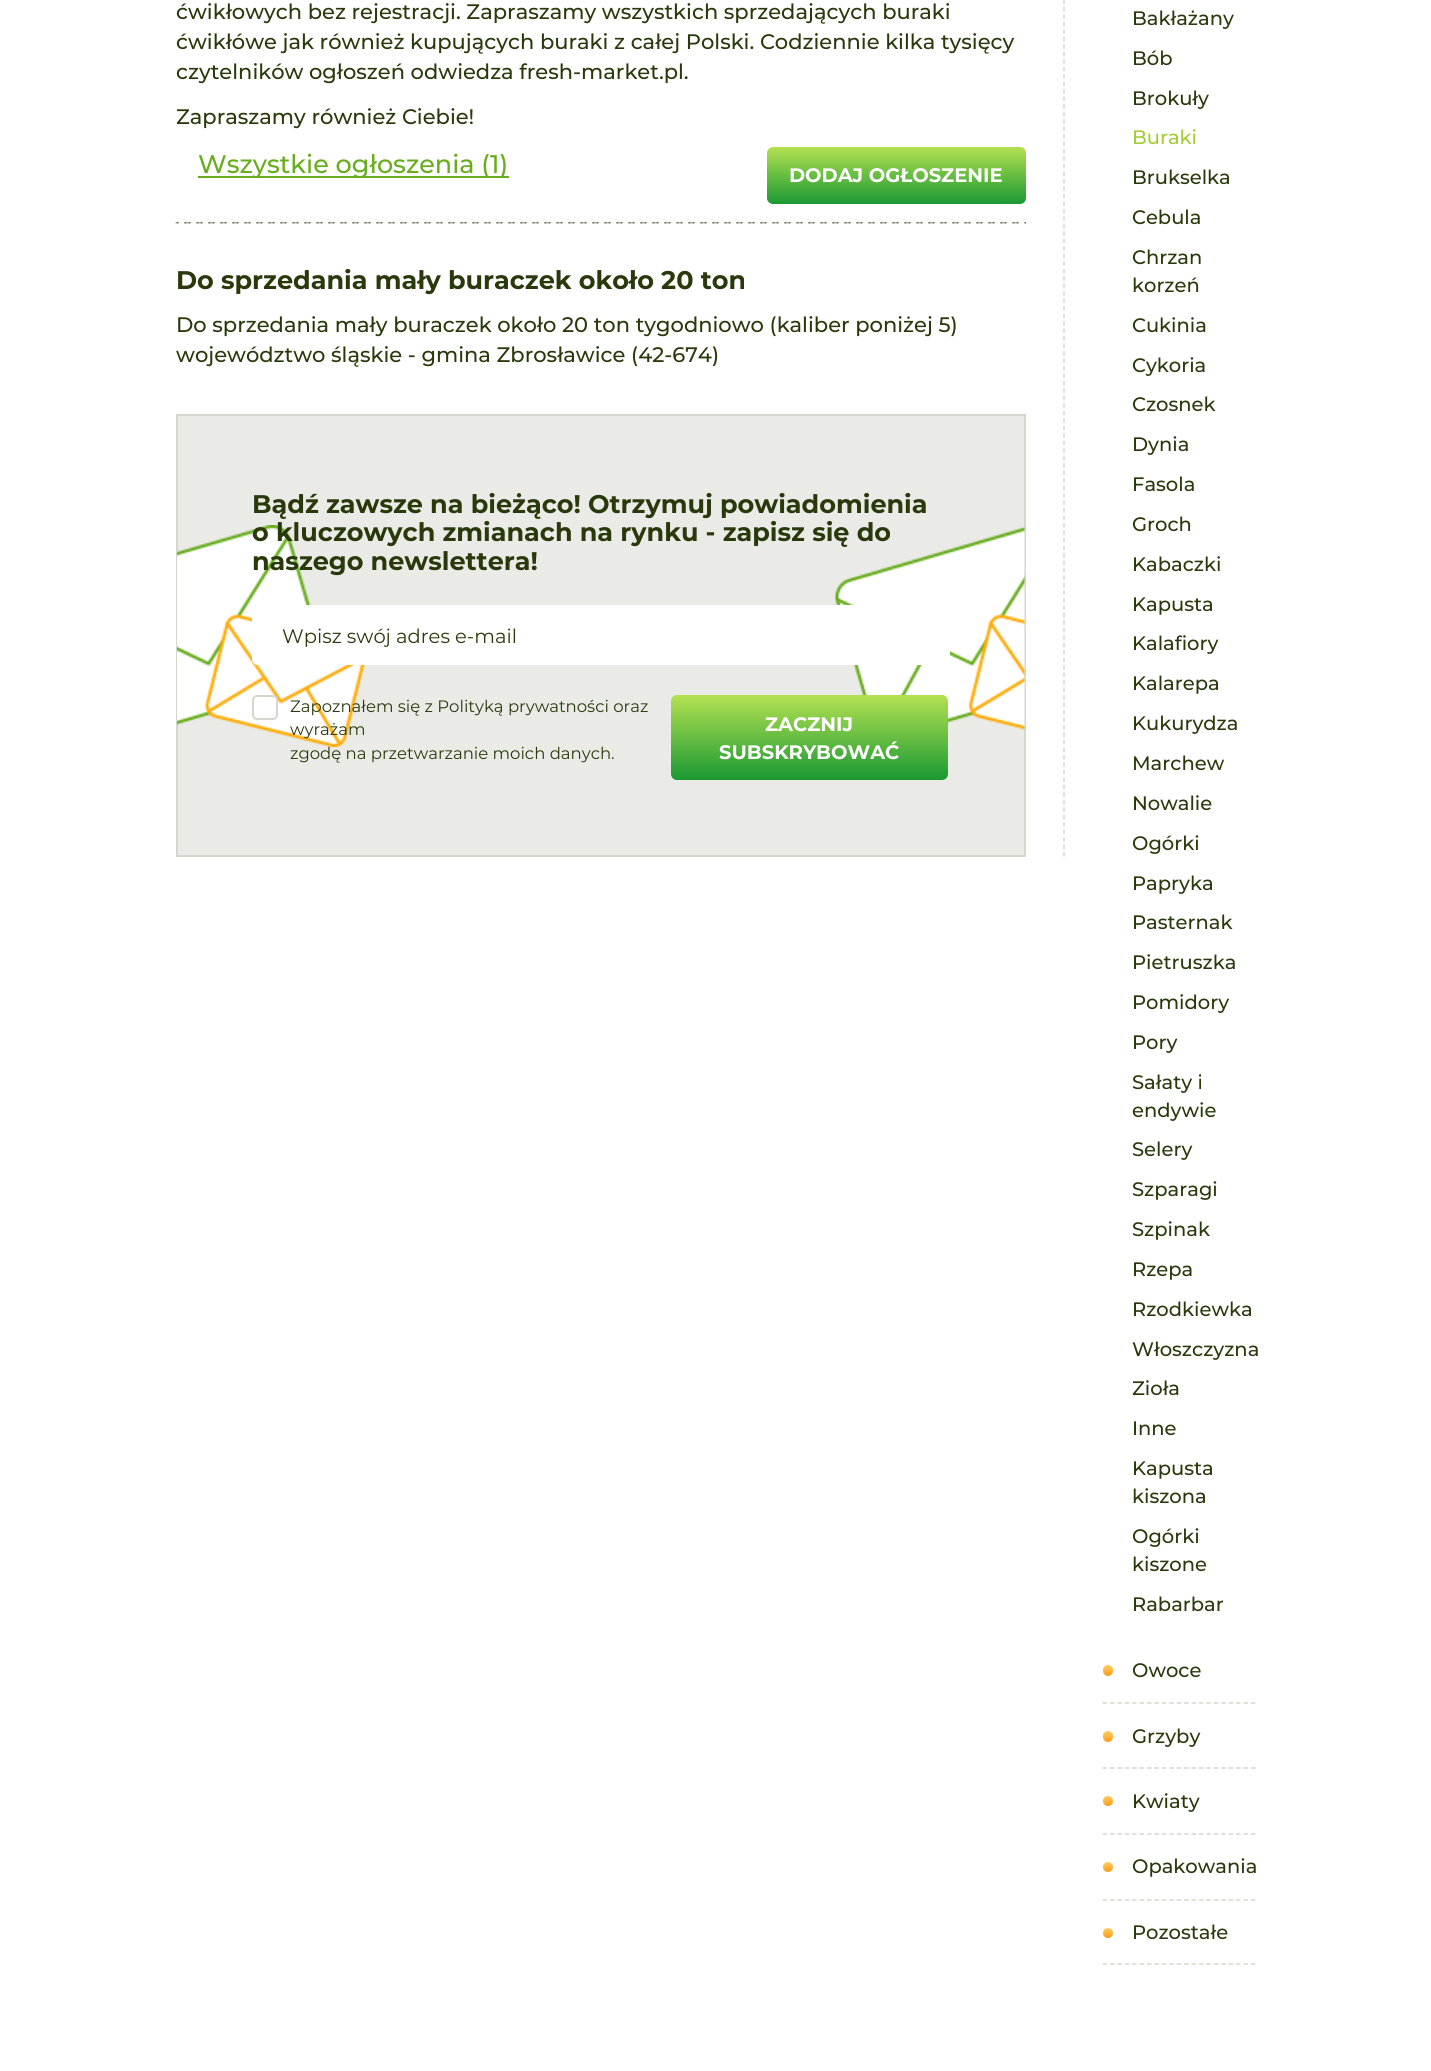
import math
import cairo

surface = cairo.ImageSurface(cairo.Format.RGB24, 1431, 2071)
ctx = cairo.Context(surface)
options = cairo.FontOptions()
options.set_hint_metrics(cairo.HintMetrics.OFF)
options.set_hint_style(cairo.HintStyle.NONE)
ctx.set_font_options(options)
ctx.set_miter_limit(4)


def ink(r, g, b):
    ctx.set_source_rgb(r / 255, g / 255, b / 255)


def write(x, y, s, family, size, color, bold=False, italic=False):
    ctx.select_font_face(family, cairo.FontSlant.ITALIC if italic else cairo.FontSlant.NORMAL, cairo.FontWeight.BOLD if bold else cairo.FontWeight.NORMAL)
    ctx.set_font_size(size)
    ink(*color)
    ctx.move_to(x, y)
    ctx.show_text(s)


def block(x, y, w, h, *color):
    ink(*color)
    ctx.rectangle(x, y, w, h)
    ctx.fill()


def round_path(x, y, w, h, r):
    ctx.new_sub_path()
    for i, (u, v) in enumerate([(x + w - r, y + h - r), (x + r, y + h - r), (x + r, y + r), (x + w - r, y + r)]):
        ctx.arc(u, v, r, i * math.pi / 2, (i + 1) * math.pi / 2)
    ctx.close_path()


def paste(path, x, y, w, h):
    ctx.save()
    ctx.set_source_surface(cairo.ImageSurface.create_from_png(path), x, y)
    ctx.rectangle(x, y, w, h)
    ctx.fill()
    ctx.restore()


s1 = dict(family="Montserrat Medium", size=21, color=(42, 57, 12))
s2 = dict(family="Montserrat Medium", size=25.5, color=(104, 173, 30))
s3 = dict(family="Montserrat", size=19.5, color=(255, 255, 255), bold=True)
s4 = dict(family="Montserrat", size=25.5, color=(42, 57, 12), bold=True)
s5 = dict(family="Montserrat", size=19.5, color=(42, 57, 12))
s6 = dict(family="Montserrat", size=16.5, color=(42, 57, 12))
s7 = dict(family="Montserrat Medium", size=19.5, color=(42, 57, 12))
s8 = dict(family="Montserrat Medium", size=19.5, color=(162, 204, 56))

ink(255, 255, 255)
ctx.paint()
ctx.new_path()
ctx.move_to(1064, -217.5)
ctx.line_to(1064, 856.5)
ink(212, 215, 206)
ctx.set_line_width(1.5)
ctx.set_dash([4.5, 2.98])
ctx.stroke()
write(176, 19, "ćwikłowych bez rejestracji. Zapraszamy wszystkich sprzedających buraki", **s1)
write(176, 49, "ćwikłówe jak również kupujących buraki z całej Polski. Codziennie kilka tysięcy", **s1)
write(176, 79, "czytelników ogłoszeń odwiedza fresh-market.pl.", **s1)
write(176, 124, "Zapraszamy również Ciebie!", **s1)
block(198, 176, 311, 2, 104, 173, 30)
write(198, 173, "Wszystkie ogłoszenia (1)", **s2)
gradient = cairo.LinearGradient(767, 204, 767, 147)
gradient.add_color_stop_rgba(0, 0.102, 0.6, 0.2, 1)
gradient.add_color_stop_rgba(1, 0.706, 0.882, 0.318, 1)
ctx.set_source(gradient)
round_path(767, 147, 259, 57, 6)
ctx.fill()
write(789, 182, "DODAJ OGŁOSZENIE", **s3)
paste("pic1.png", 175, 222, 851, 2)
write(176, 289, "Do sprzedania mały buraczek około 20 ton", **s4)
write(176, 332, "Do sprzedania mały buraczek około 20 ton tygodniowo (kaliber poniżej 5)", **s1)
write(176, 362, "województwo śląskie - gmina Zbrosławice (42-674)", **s1)
ink(234, 235, 231)
ctx.rectangle(177, 415, 848, 441)
ctx.fill_preserve()
ink(212, 215, 206)
ctx.set_line_width(2)
ctx.set_dash([])
ctx.stroke()
write(252, 513, "Bądź zawsze na bieżąco! Otrzymuj powiadomienia", **s4)
paste("pic2.png", 177, 525, 188, 222)
paste("pic3.png", 835, 526, 190, 205)
write(252, 541, "o kluczowych zmianach na rynku - zapisz się do", **s4)
write(252, 570, "naszego newslettera!", **s4)
ink(255, 255, 255)
round_path(252, 605, 698, 60, 6)
ctx.fill()
write(282, 643, "Wpisz swój adres e-mail", **s5)
ink(255, 255, 255)
round_path(253, 696, 24, 23, 4)
ctx.fill_preserve()
ink(212, 215, 206)
ctx.stroke()
write(290, 712, "Zapoznałem się z Polityką prywatności oraz", **s6)
write(290, 735, "wyrażam", **s6)
write(290, 759, "zgodę na przetwarzanie moich danych.", **s6)
gradient = cairo.LinearGradient(671, 780, 671, 695)
gradient.add_color_stop_rgba(0, 0.102, 0.6, 0.2, 1)
gradient.add_color_stop_rgba(1, 0.706, 0.882, 0.318, 1)
ctx.set_source(gradient)
round_path(671, 695, 277, 85, 6)
ctx.fill()
write(765, 731, "ZACZNIJ", **s3)
write(719, 759, "SUBSKRYBOWAĆ", **s3)
write(1132, 25, "Bakłażany", **s7)
write(1132, 65, "Bób", **s7)
write(1132, 105, "Brokuły", **s7)
write(1132, 144, "Buraki", **s8)
write(1132, 184, "Brukselka", **s7)
write(1132, 224, "Cebula", **s7)
write(1132, 264, "Chrzan", **s7)
write(1132, 292, "korzeń", **s7)
write(1132, 332, "Cukinia", **s7)
write(1132, 372, "Cykoria", **s7)
write(1132, 411, "Czosnek", **s7)
write(1132, 451, "Dynia", **s7)
write(1132, 491, "Fasola", **s7)
write(1132, 531, "Groch", **s7)
write(1132, 571, "Kabaczki", **s7)
write(1132, 611, "Kapusta", **s7)
write(1132, 650, "Kalafiory", **s7)
write(1132, 690, "Kalarepa", **s7)
write(1132, 730, "Kukurydza", **s7)
write(1132, 770, "Marchew", **s7)
write(1132, 810, "Nowalie", **s7)
write(1132, 850, "Ogórki", **s7)
write(1132, 890, "Papryka", **s7)
write(1132, 929, "Pasternak", **s7)
write(1132, 969, "Pietruszka", **s7)
write(1132, 1009, "Pomidory", **s7)
write(1132, 1049, "Pory", **s7)
write(1132, 1089, "Sałaty i", **s7)
write(1132, 1117, "endywie", **s7)
write(1132, 1156, "Selery", **s7)
write(1132, 1196, "Szparagi", **s7)
write(1132, 1236, "Szpinak", **s7)
write(1132, 1276, "Rzepa", **s7)
write(1132, 1316, "Rzodkiewka", **s7)
write(1132, 1356, "Włoszczyzna", **s7)
write(1132, 1395, "Zioła", **s7)
write(1132, 1435, "Inne", **s7)
write(1132, 1475, "Kapusta", **s7)
write(1132, 1503, "kiszona", **s7)
write(1132, 1543, "Ogórki", **s7)
write(1132, 1571, "kiszone", **s7)
write(1132, 1611, "Rabarbar", **s7)
ctx.new_path()
ctx.move_to(1102.5, 1703)
ctx.line_to(1255.5, 1703)
ink(212, 215, 206)
ctx.set_line_width(1.5)
ctx.set_dash([4.5, 2.92])
ctx.stroke()
gradient = cairo.LinearGradient(1103, 1676, 1103, 1665)
gradient.add_color_stop_rgba(0, 1, 0.604, 0.078, 1)
gradient.add_color_stop_rgba(1, 1, 0.812, 0.396, 1)
ctx.set_source(gradient)
round_path(1103, 1665, 10, 11, 5)
ctx.fill()
write(1132, 1677, "Owoce", **s7)
ctx.new_path()
ctx.move_to(1102.5, 1768)
ctx.line_to(1255.5, 1768)
ink(212, 215, 206)
ctx.stroke()
gradient = cairo.LinearGradient(1103, 1742, 1103, 1731)
gradient.add_color_stop_rgba(0, 1, 0.604, 0.078, 1)
gradient.add_color_stop_rgba(1, 1, 0.812, 0.396, 1)
ctx.set_source(gradient)
round_path(1103, 1731, 10, 11, 5)
ctx.fill()
write(1132, 1743, "Grzyby", **s7)
ctx.new_path()
ctx.move_to(1102.5, 1834)
ctx.line_to(1255.5, 1834)
ink(212, 215, 206)
ctx.stroke()
gradient = cairo.LinearGradient(1103, 1806, 1103, 1796)
gradient.add_color_stop_rgba(0, 1, 0.604, 0.078, 1)
gradient.add_color_stop_rgba(1, 1, 0.812, 0.396, 1)
ctx.set_source(gradient)
ctx.arc(1108, 1801, 5, 0, 2 * math.pi)
ctx.fill()
write(1132, 1808, "Kwiaty", **s7)
ctx.new_path()
ctx.move_to(1102.5, 1900)
ctx.line_to(1255.5, 1900)
ink(212, 215, 206)
ctx.stroke()
gradient = cairo.LinearGradient(1103, 1872, 1103, 1862)
gradient.add_color_stop_rgba(0, 1, 0.604, 0.078, 1)
gradient.add_color_stop_rgba(1, 1, 0.812, 0.396, 1)
ctx.set_source(gradient)
ctx.arc(1108, 1867, 5, 0, 2 * math.pi)
ctx.fill()
write(1132, 1873, "Opakowania", **s7)
ctx.new_path()
ctx.move_to(1102.5, 1964)
ctx.line_to(1255.5, 1964)
ink(212, 215, 206)
ctx.stroke()
gradient = cairo.LinearGradient(1103, 1938, 1103, 1928)
gradient.add_color_stop_rgba(0, 1, 0.604, 0.078, 1)
gradient.add_color_stop_rgba(1, 1, 0.812, 0.396, 1)
ctx.set_source(gradient)
ctx.arc(1108, 1933, 5, 0, 2 * math.pi)
ctx.fill()
write(1132, 1939, "Pozostałe", **s7)
surface.write_to_png("screenshot.png")
